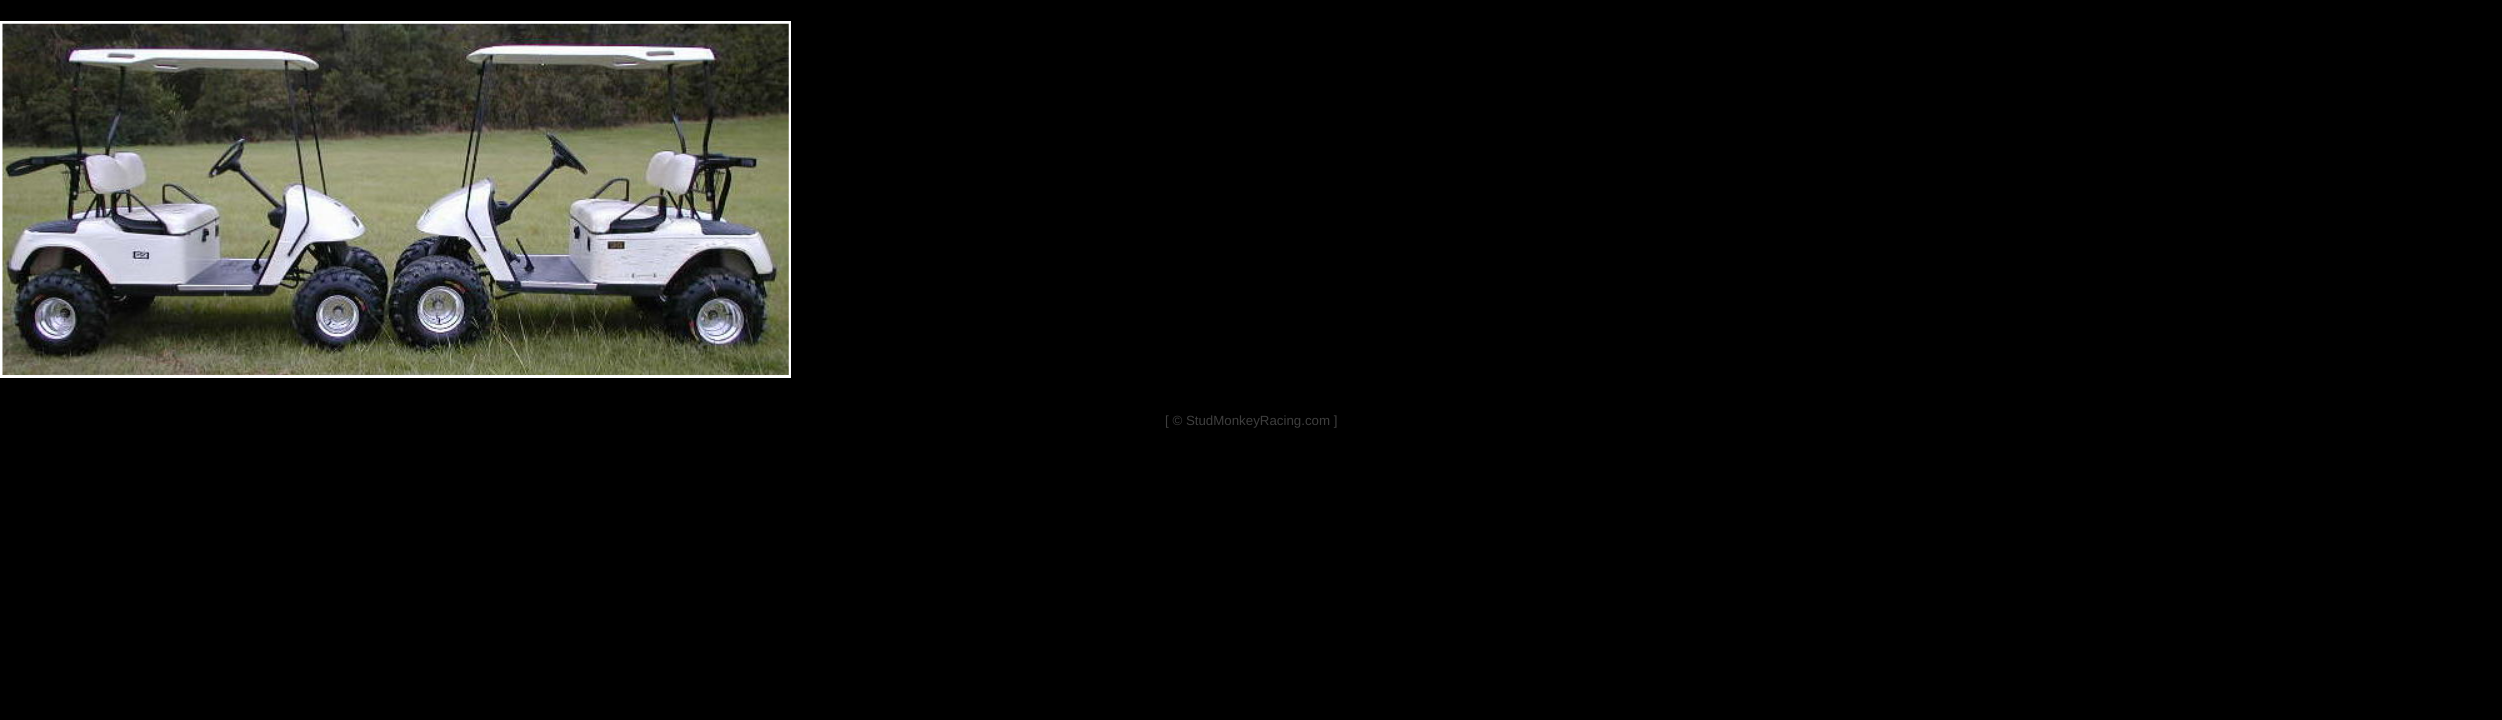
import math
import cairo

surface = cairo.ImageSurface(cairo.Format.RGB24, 2502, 720)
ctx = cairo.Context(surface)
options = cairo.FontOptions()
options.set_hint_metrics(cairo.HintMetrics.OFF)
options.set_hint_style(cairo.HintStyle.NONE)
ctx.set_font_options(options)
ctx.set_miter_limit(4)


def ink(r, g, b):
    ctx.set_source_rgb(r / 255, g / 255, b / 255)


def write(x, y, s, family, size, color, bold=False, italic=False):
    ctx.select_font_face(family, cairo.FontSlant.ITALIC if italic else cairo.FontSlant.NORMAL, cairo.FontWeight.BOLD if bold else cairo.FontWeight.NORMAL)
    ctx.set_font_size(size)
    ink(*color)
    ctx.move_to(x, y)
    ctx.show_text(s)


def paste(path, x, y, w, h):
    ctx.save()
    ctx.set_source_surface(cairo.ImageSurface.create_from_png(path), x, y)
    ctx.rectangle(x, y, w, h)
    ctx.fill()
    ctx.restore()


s1 = dict(family="Liberation Sans", size=13.3, color=(62, 62, 62))

ink(0, 0, 0)
ctx.paint()
ctx.rectangle(1.5, 22.5, 788, 354)
ink(255, 255, 255)
ctx.set_line_width(3)
ctx.stroke()
paste("pic1.png", 2, 23, 787, 352)
write(1165, 425, "[ © StudMonkeyRacing.com ]", **s1)
surface.write_to_png("screenshot.png")
